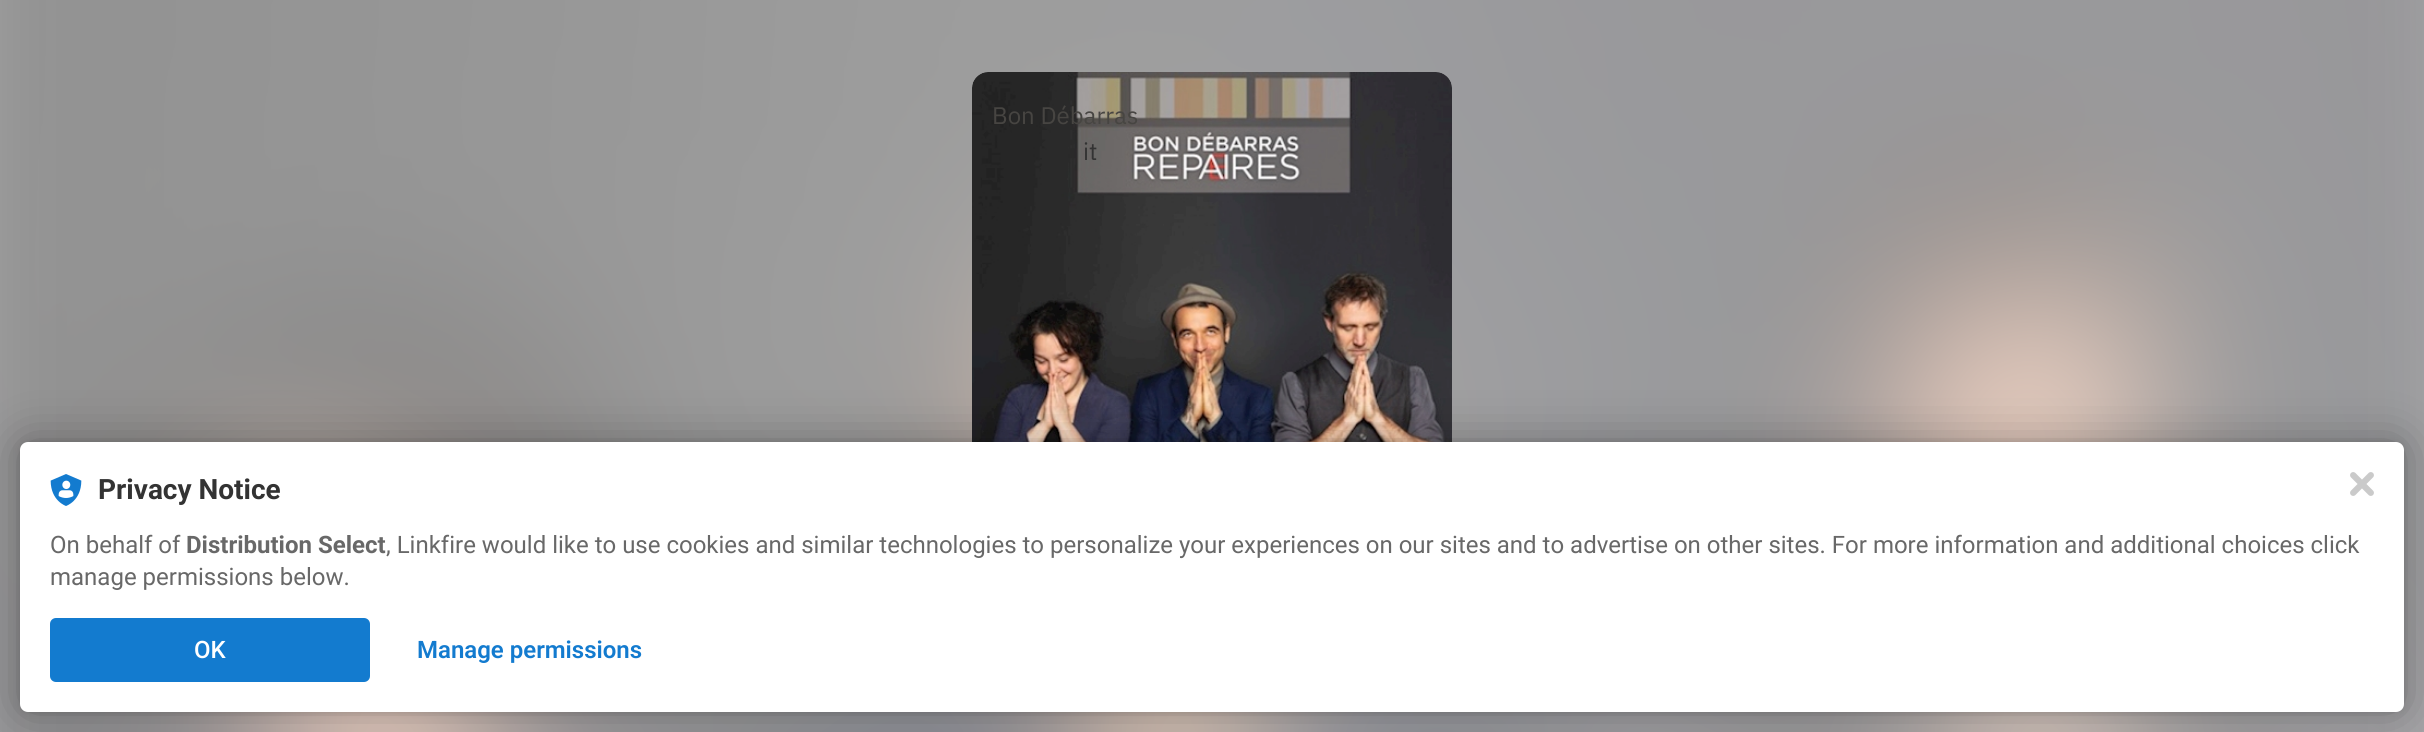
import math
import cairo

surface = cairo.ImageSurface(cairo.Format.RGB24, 2424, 732)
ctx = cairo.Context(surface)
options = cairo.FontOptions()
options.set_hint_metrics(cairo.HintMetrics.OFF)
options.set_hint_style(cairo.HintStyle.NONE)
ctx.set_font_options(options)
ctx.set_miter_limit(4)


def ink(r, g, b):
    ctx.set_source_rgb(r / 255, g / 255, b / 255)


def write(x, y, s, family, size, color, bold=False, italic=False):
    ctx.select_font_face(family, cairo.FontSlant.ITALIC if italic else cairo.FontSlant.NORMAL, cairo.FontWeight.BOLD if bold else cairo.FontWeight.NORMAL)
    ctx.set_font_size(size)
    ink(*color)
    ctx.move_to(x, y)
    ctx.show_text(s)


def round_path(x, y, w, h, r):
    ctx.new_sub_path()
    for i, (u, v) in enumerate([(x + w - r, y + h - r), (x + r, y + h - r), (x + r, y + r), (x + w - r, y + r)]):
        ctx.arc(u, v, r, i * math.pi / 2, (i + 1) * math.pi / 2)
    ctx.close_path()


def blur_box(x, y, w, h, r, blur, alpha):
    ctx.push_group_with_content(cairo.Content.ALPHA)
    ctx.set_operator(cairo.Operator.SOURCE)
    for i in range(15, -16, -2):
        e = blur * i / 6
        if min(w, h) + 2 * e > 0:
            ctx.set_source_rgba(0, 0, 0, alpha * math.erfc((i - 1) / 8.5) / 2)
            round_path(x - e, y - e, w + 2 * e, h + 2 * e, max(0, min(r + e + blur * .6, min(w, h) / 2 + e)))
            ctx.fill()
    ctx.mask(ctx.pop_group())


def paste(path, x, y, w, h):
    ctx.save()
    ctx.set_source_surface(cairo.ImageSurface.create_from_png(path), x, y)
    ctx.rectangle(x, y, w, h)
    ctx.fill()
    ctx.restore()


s1 = dict(family="IBM Plex Sans", size=24, color=(71, 69, 66))
s2 = dict(family="IBM Plex Sans", size=24, color=(51, 51, 51))
s3 = dict(family="Roboto", size=28, color=(51, 51, 51), bold=True)
s4 = dict(family="Roboto", size=24, color=(104, 104, 104))
s5 = dict(family="Roboto", size=24, color=(104, 104, 104), bold=True)
s6 = dict(family="Roboto Medium", size=24, color=(255, 255, 255))
s7 = dict(family="Roboto SemiBold", size=24, color=(19, 123, 207))

ink(255, 255, 255)
ctx.paint()
paste("pic1.png", 0, 0, 2424, 732)
paste("pic2.png", 972, 72, 480, 370)
write(992, 124, "Bon Débarras", **s1)
write(1083, 160, "it", **s2)
ink(0, 0, 0)
blur_box(20, 442, 2384, 270, 8, 4, 0.12)
blur_box(20, 442, 2384, 270, 8, 24, 0.3)
ink(255, 255, 255)
round_path(20, 442, 2384, 270, 8)
ctx.fill()
paste("pic3.png", 50, 474, 32, 32)
write(98, 499, "Privacy Notice", **s3)
write(50, 553, "On behalf of", **s4)
write(186, 553, "Distribution Select", **s5)
write(386, 553, ", Linkfire would like to use cookies and similar technologies to personalize your experiences on our sites and to advertise on other sites. For more information and additional choices click", **s4)
write(50, 585, "manage permissions below.", **s4)
ink(19, 123, 207)
round_path(50, 618, 320, 64, 6)
ctx.fill()
write(194, 658, "OK", **s6)
write(417, 658, "Manage permissions", **s7)
paste("pic4.png", 2350, 472, 24, 24)
surface.write_to_png("screenshot.png")
